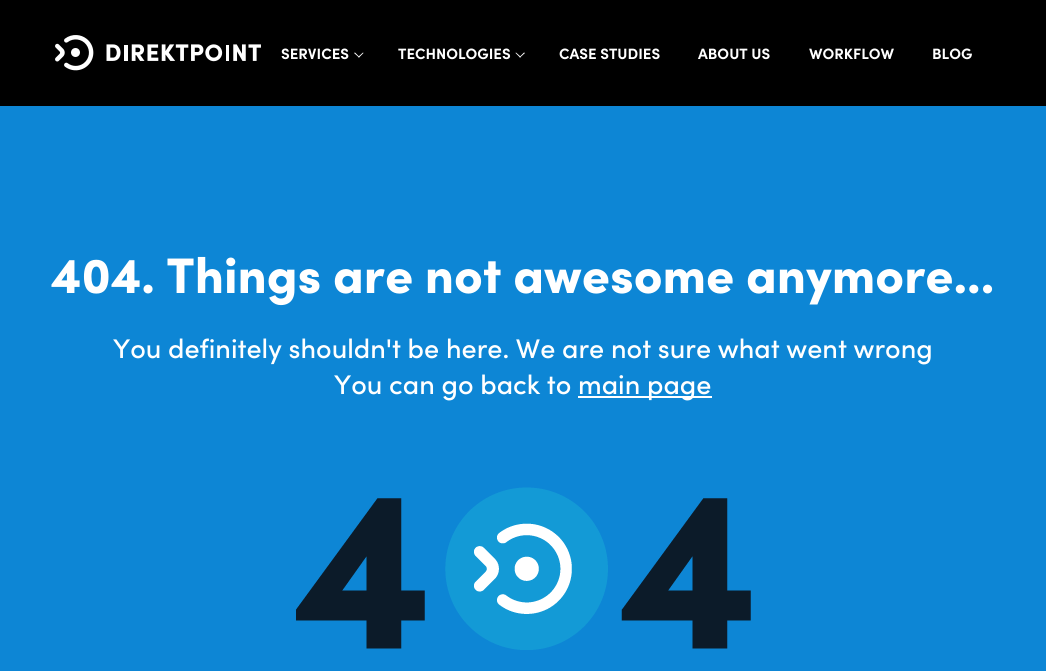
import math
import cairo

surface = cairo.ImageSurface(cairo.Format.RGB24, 1046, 671)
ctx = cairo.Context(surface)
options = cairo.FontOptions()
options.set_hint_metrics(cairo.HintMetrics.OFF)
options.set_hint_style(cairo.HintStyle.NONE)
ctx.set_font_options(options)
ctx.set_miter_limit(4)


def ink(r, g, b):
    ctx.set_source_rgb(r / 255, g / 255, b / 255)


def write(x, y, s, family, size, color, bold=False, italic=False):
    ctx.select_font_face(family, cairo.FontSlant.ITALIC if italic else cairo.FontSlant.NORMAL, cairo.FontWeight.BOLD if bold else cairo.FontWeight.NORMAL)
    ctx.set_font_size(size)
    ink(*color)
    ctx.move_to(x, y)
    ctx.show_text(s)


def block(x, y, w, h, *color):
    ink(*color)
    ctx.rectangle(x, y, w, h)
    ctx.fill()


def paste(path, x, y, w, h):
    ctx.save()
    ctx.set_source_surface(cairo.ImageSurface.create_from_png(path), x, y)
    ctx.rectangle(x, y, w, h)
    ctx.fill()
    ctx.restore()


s1 = dict(family="Sofia", size=15, color=(255, 255, 255), bold=True)
s2 = dict(family="Sofia Black", size=50, color=(255, 255, 255))
s3 = dict(family="Sofia Medium", size=27, color=(255, 255, 255))

ink(13, 134, 213)
ctx.paint()
block(0, 0, 1046, 106, 0, 0, 0)
paste("pic1.png", 55, 35, 206, 36)
write(281, 59, "SERVICES", **s1)
ctx.new_path()
ctx.move_to(363.5, 53)
ctx.line_to(359, 57.5)
ctx.line_to(358, 57)
ctx.line_to(363, 52.5)
ctx.close_path()
ctx.fill()
ctx.new_path()
ctx.move_to(359.5, 57)
ctx.line_to(359, 57.5)
ctx.line_to(354, 53)
ctx.line_to(355, 52.5)
ctx.close_path()
ctx.fill()
write(398, 59, "TECHNOLOGIES", **s1)
ctx.new_path()
ctx.move_to(525, 53)
ctx.line_to(520, 57.5)
ctx.line_to(519.5, 57)
ctx.line_to(524, 52.5)
ctx.close_path()
ctx.fill()
ctx.new_path()
ctx.move_to(521, 57)
ctx.line_to(520, 57.5)
ctx.line_to(515.5, 53)
ctx.line_to(516, 52.5)
ctx.close_path()
ctx.fill()
write(559, 59, "CASE STUDIES", **s1)
write(698, 59, "ABOUT US", **s1)
write(809, 59, "WORKFLOW", **s1)
write(932, 59, "BLOG", **s1)
write(51, 293, "404. Things are not awesome anymore...", **s2)
write(113, 358, "You definitely shouldn't be here. We are not sure what went wrong", **s3)
write(334, 394, "You can go back to", **s3)
block(578, 396, 134, 2, 255, 255, 255)
write(578, 394, "main page", **s3)
paste("pic2.png", 296, 487, 455, 163)
surface.write_to_png("screenshot.png")
